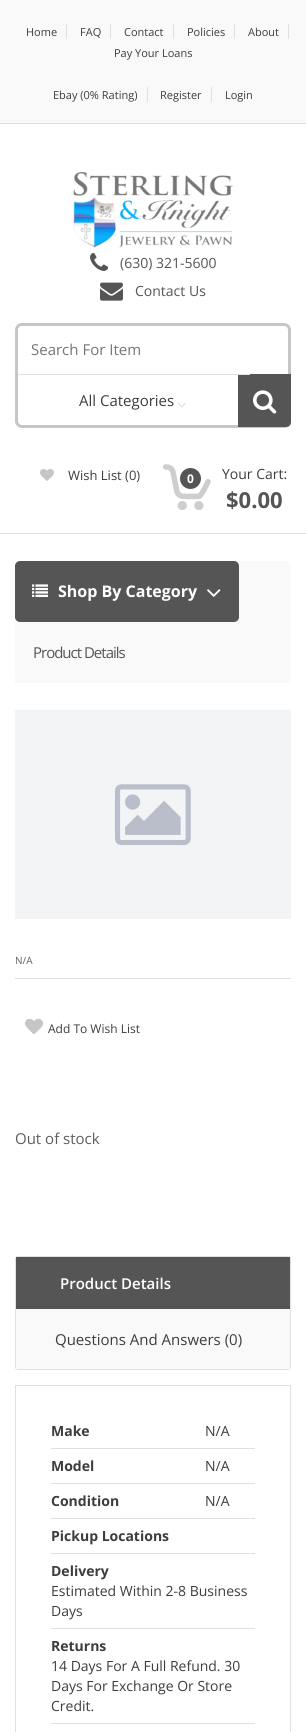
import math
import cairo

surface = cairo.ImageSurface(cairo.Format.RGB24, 306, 1732)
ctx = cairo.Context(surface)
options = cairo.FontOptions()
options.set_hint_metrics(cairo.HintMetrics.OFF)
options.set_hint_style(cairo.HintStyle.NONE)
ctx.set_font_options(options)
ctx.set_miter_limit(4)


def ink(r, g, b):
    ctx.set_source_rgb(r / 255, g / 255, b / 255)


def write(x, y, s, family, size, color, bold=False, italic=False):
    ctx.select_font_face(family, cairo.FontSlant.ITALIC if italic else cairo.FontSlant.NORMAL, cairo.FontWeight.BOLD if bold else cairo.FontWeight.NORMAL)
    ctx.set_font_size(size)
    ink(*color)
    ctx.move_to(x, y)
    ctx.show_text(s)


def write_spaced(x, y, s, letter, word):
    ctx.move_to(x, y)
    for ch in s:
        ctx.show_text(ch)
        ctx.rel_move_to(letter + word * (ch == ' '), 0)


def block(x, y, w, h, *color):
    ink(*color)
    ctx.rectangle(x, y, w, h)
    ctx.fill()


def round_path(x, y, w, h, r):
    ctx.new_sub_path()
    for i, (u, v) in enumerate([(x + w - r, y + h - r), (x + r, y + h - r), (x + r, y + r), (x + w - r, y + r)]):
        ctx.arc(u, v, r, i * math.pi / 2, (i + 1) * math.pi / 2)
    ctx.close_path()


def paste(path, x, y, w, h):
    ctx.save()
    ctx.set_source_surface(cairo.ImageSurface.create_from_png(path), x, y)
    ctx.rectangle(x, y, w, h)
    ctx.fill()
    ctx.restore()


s1 = dict(family="Open Sans", size=11, color=(61, 61, 61))
s2 = dict(family="Open Sans", size=14, color=(85, 85, 85))
s3 = dict(family="Open Sans", size=15, color=(117, 117, 117))
s4 = dict(family="Open Sans", size=15, color=(61, 61, 61))
s5 = dict(family="Open Sans", size=13, color=(61, 61, 61))
s6 = dict(family="Open Sans", size=12, color=(255, 255, 255), bold=True)
s7 = dict(family="Open Sans", size=14, color=(61, 61, 61))
s8 = dict(family="Open Sans", size=22, color=(85, 85, 85), bold=True)
s9 = dict(family="Open Sans", size=16, color=(255, 255, 255), bold=True)
s10 = dict(family="Open Sans", size=10, color=(93, 93, 93))
s11 = dict(family="Open Sans", size=12, color=(61, 61, 61))
s12 = dict(family="Open Sans", size=15, color=(93, 93, 93))
s13 = dict(family="Open Sans SemiBold", size=15, color=(255, 255, 255))
s14 = dict(family="Open Sans", size=14, color=(61, 61, 61), bold=True)

ink(255, 255, 255)
ctx.paint()
block(0, 0, 306, 123, 249, 249, 249)
block(0, 123, 306, 1, 224, 224, 224)
block(66, 24, 1, 15, 224, 224, 224)
write(26, 36, "Home", **s1)
block(110, 24, 1, 15, 224, 224, 224)
write(80, 36, "FAQ", **s1)
block(173, 24, 1, 15, 224, 224, 224)
write(124, 36, "Contact", **s1)
block(234, 24, 1, 15, 224, 224, 224)
write(187, 36, "Policies", **s1)
block(288, 24, 1, 15, 224, 224, 224)
write(248, 36, "About", **s1)
write(114, 57, "Pay Your Loans", **s1)
block(147, 87, 1, 15, 224, 224, 224)
write(53, 99, "Ebay (0% Rating)", **s1)
block(211, 87, 1, 15, 224, 224, 224)
write(160, 99, "Register", **s1)
write(225, 99, "Login", **s1)
block(0, 533, 306, 1, 224, 224, 224)
paste("pic1.png", 73, 172, 160, 76)
paste("pic2.png", 90, 252, 19, 19)
write(120, 268, "(630) 321-5600", **s2)
paste("pic3.png", 100, 282, 23, 19)
write(135, 296, "Contact Us", **s2)
round_path(16.5, 324.5, 273, 102, 5.5)
ink(198, 198, 198)
ctx.set_line_width(3)
ctx.stroke()
ink(255, 255, 255)
ctx.new_path()
ctx.move_to(23, 326)
ctx.line_to(175, 326)
ctx.line_to(175, 374)
ctx.line_to(23, 374)
ctx.curve_to(20, 374, 18, 372, 18, 369)
ctx.line_to(18, 331)
ctx.curve_to(18, 328, 20, 326, 23, 326)
ctx.close_path()
ctx.fill()
write(31, 355, "Search For Item", **s3)
ink(85, 85, 85)
ctx.new_path()
ctx.move_to(238, 374)
ctx.line_to(291, 374)
ctx.line_to(291, 422)
ctx.curve_to(291, 425, 289, 427, 286, 427)
ctx.line_to(238, 427)
ctx.close_path()
ctx.fill()
block(18, 374, 232, 1, 224, 224, 224)
write(79, 406, "All Categories", **s4)
paste("pic4.png", 177, 402, 9, 6)
paste("pic5.png", 253, 390, 24, 24)
paste("pic6.png", 40, 469, 14, 12)
write(68, 480, "Wish List (0)", **s5)
paste("pic7.png", 163, 464, 48, 46)
ink(85, 85, 85)
ctx.arc(190.5, 478.5, 10.5, 0, 2 * math.pi)
ctx.fill()
write(187, 483, "0", **s6)
write(222, 479, "Your Cart:", **s7)
write(226, 508, "$0.00", **s8)
ink(249, 249, 249)
round_path(15, 561, 276, 122, 5)
ctx.fill()
ink(85, 85, 85)
round_path(15, 561, 224, 61, 5)
ctx.fill()
paste("pic8.png", 32, 584, 16, 13)
write(58, 597, "Shop By Category", **s9)
paste("pic9.png", 207, 589, 14, 8)
block(15, 680, 3, 3, 249, 249, 249)
ctx.select_font_face("Open Sans")
ctx.set_font_size(15)
ink(85, 85, 85)
write_spaced(33, 658, "Product Details", -1, 0)
paste("pic10.png", 15, 710, 276, 209)
block(15, 978, 276, 1, 224, 224, 224)
write(15, 964, "N/A", **s10)
paste("pic11.png", 25, 1018, 18, 17)
write(48, 1033, "Add To Wish List", **s11)
write(15, 1144, "Out of stock", **s12)
round_path(15.5, 1256.5, 275, 113, 2.5)
ink(224, 224, 224)
ctx.set_line_width(1)
ctx.stroke()
block(16, 1257, 274, 52, 85, 85, 85)
write(60, 1289, "Product Details", **s13)
block(16, 1309, 274, 60, 249, 249, 249)
write(55, 1345, "Questions And Answers (0)", **s4)
ctx.rectangle(15.5, 1385.5, 275, 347)
ink(224, 224, 224)
ctx.stroke()
block(51, 1448, 204, 1, 224, 224, 224)
write(51, 1436, "Make", **s14)
write(205, 1436, "N/A", **s7)
block(51, 1483, 204, 1, 224, 224, 224)
write(51, 1471, "Model", **s14)
write(205, 1471, "N/A", **s7)
block(51, 1518, 204, 1, 224, 224, 224)
write(51, 1506, "Condition", **s14)
write(205, 1506, "N/A", **s7)
block(51, 1553, 204, 1, 224, 224, 224)
write(51, 1541, "Pickup Locations", **s14)
block(51, 1628, 204, 1, 224, 224, 224)
write(51, 1576, "Delivery", **s14)
write(51, 1596, "Estimated Within 2-8 Business", **s7)
write(51, 1616, "Days", **s7)
block(51, 1723, 204, 1, 224, 224, 224)
write(51, 1651, "Returns", **s14)
write(51, 1671, "14 Days For A Full Refund. 30", **s7)
write(51, 1691, "Days For Exchange Or Store", **s7)
write(51, 1711, "Credit.", **s7)
surface.write_to_png("screenshot.png")
